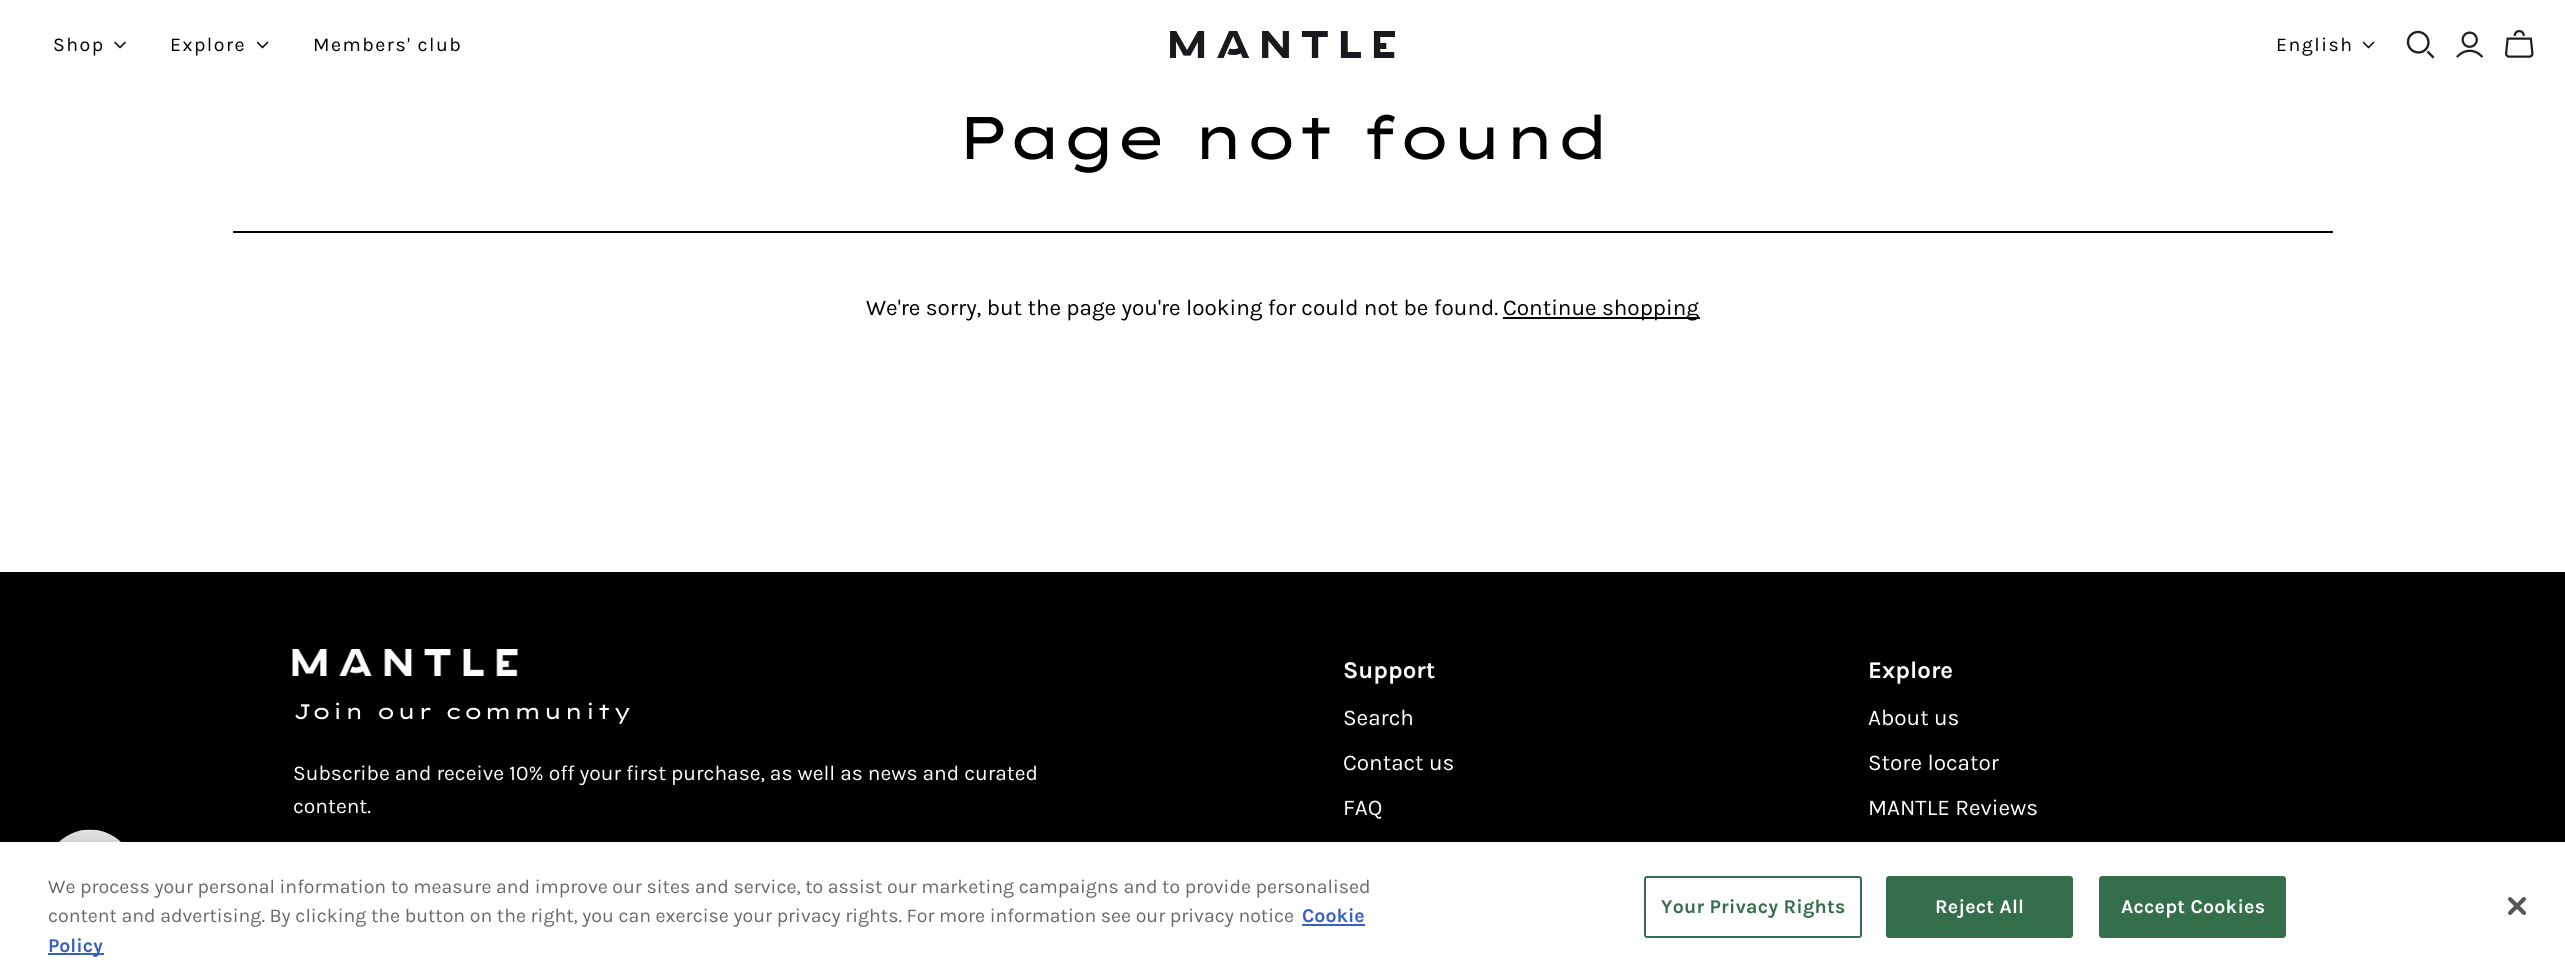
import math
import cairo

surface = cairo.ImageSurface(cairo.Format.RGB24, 2565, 974)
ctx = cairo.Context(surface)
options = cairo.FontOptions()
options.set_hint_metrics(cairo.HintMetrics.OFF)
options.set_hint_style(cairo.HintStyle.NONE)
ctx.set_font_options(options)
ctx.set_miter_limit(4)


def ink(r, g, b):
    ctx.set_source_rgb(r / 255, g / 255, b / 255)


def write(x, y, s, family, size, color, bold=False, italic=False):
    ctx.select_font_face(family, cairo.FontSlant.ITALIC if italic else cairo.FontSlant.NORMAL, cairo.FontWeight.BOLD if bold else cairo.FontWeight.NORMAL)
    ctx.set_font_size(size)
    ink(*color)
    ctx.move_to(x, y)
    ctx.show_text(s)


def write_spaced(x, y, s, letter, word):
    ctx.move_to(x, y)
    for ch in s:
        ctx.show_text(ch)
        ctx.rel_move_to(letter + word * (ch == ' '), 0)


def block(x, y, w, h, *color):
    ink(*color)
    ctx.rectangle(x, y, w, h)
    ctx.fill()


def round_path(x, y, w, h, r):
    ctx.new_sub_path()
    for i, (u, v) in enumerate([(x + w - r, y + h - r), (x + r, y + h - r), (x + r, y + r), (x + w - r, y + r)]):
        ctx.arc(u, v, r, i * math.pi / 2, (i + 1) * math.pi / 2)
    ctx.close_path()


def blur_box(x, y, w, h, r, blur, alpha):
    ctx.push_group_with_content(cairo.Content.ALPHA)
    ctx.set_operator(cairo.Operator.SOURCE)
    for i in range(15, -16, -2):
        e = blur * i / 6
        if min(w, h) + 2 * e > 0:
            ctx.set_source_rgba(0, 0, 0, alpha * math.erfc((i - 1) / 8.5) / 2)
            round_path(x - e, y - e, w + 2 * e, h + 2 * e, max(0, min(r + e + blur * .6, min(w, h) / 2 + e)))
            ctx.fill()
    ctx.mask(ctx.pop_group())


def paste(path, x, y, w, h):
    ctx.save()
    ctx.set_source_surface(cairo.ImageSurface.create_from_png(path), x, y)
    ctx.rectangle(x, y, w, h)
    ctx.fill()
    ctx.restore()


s1 = dict(family="Karla", size=22.5, color=(0, 0, 0))
s2 = dict(family="Karla", size=21, color=(255, 255, 255))
s3 = dict(family="Karla", size=24, color=(255, 255, 255), bold=True)
s4 = dict(family="Karla", size=22.5, color=(255, 255, 255))
s5 = dict(family="Karla", size=19.5, color=(105, 105, 105))
s6 = dict(family="Karla", size=19.5, color=(56, 96, 190), bold=True)

ink(255, 255, 255)
ctx.paint()
ctx.select_font_face("Karla")
ctx.set_font_size(19.5)
ink(0, 0, 0)
write_spaced(53, 51, "Shop", 1.5, 0)
paste("pic1.png", 114, 41, 12, 8)
write_spaced(170, 51, "Explore", 1.5, 0)
paste("pic2.png", 257, 41, 12, 8)
write_spaced(313, 51, "Members' club", 1.5, 0)
paste("pic3.png", 1170, 31, 225, 27)
write_spaced(2276, 51, "English", 1.5, 0)
paste("pic2.png", 2363, 41, 12, 8)
paste("pic4.png", 2406, 30, 29, 29)
paste("pic5.png", 2456, 31, 28, 27)
paste("pic6.png", 2505, 30, 29, 28)
block(233, 231, 2100, 2, 0, 0, 0)
ctx.select_font_face("Lexend Tera")
ctx.set_font_size(60)
write_spaced(957, 159, "Page not found", -1.75, 0)
write(866, 315, "We're sorry, but the page you're looking for could not be found.", **s1)
block(1503, 317, 197, 2, 0, 0, 0)
write(1503, 315, "Continue shopping", **s1)
block(0, 572, 2565, 270, 0, 0, 0)
paste("pic7.png", 292, 649, 226, 27)
ctx.select_font_face("Lexend Tera")
ctx.set_font_size(21)
ink(255, 255, 255)
write_spaced(293, 719, "Join our community", 1.7, 0)
write(293, 780, "Subscribe and receive 10% off your first purchase, as well as news and curated", **s2)
write(293, 813, "content.", **s2)
write(1343, 678, "Support", **s3)
write(1343, 725, "Search", **s4)
write(1343, 770, "Contact us", **s4)
write(1343, 815, "FAQ", **s4)
write(1868, 678, "Explore", **s3)
write(1868, 725, "About us", **s4)
write(1868, 770, "Store locator", **s4)
write(1868, 815, "MANTLE Reviews", **s4)
paste("pic8.png", 58, 829, 64, 13)
ink(0, 0, 0)
blur_box(0, 842, 2565, 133, 0, 13.5, 0.2)
block(0, 842, 2565, 132, 255, 255, 255)
write(48, 893, "We process your personal information to measure and improve our sites and service, to assist our marketing campaigns and to provide personalised", **s5)
write(48, 922, "content and advertising. By clicking the button on the right, you can exercise your privacy rights. For more information see our privacy notice", **s5)
write(1302, 922, "Cookie", **s6)
block(1302, 924, 63, 2, 56, 96, 190)
block(48, 953, 56, 2, 56, 96, 190)
write(48, 952, "Policy", **s6)
round_path(1645, 877, 216, 60, 2)
ink(52, 110, 74)
ctx.stroke()
write_spaced(1661, 913, "Your Privacy Rights", 0.25, 0)
round_path(1887, 877, 185, 60, 2)
ctx.fill_preserve()
ctx.stroke()
ink(255, 255, 255)
write_spaced(1935, 913, "Reject All", 0.25, 0)
ink(52, 110, 74)
round_path(2100, 877, 185, 60, 2)
ctx.fill_preserve()
ctx.stroke()
ink(255, 255, 255)
write_spaced(2121, 913, "Accept Cookies", 0.25, 0)
paste("pic9.png", 2508, 897, 18, 18)
surface.write_to_png("screenshot.png")
